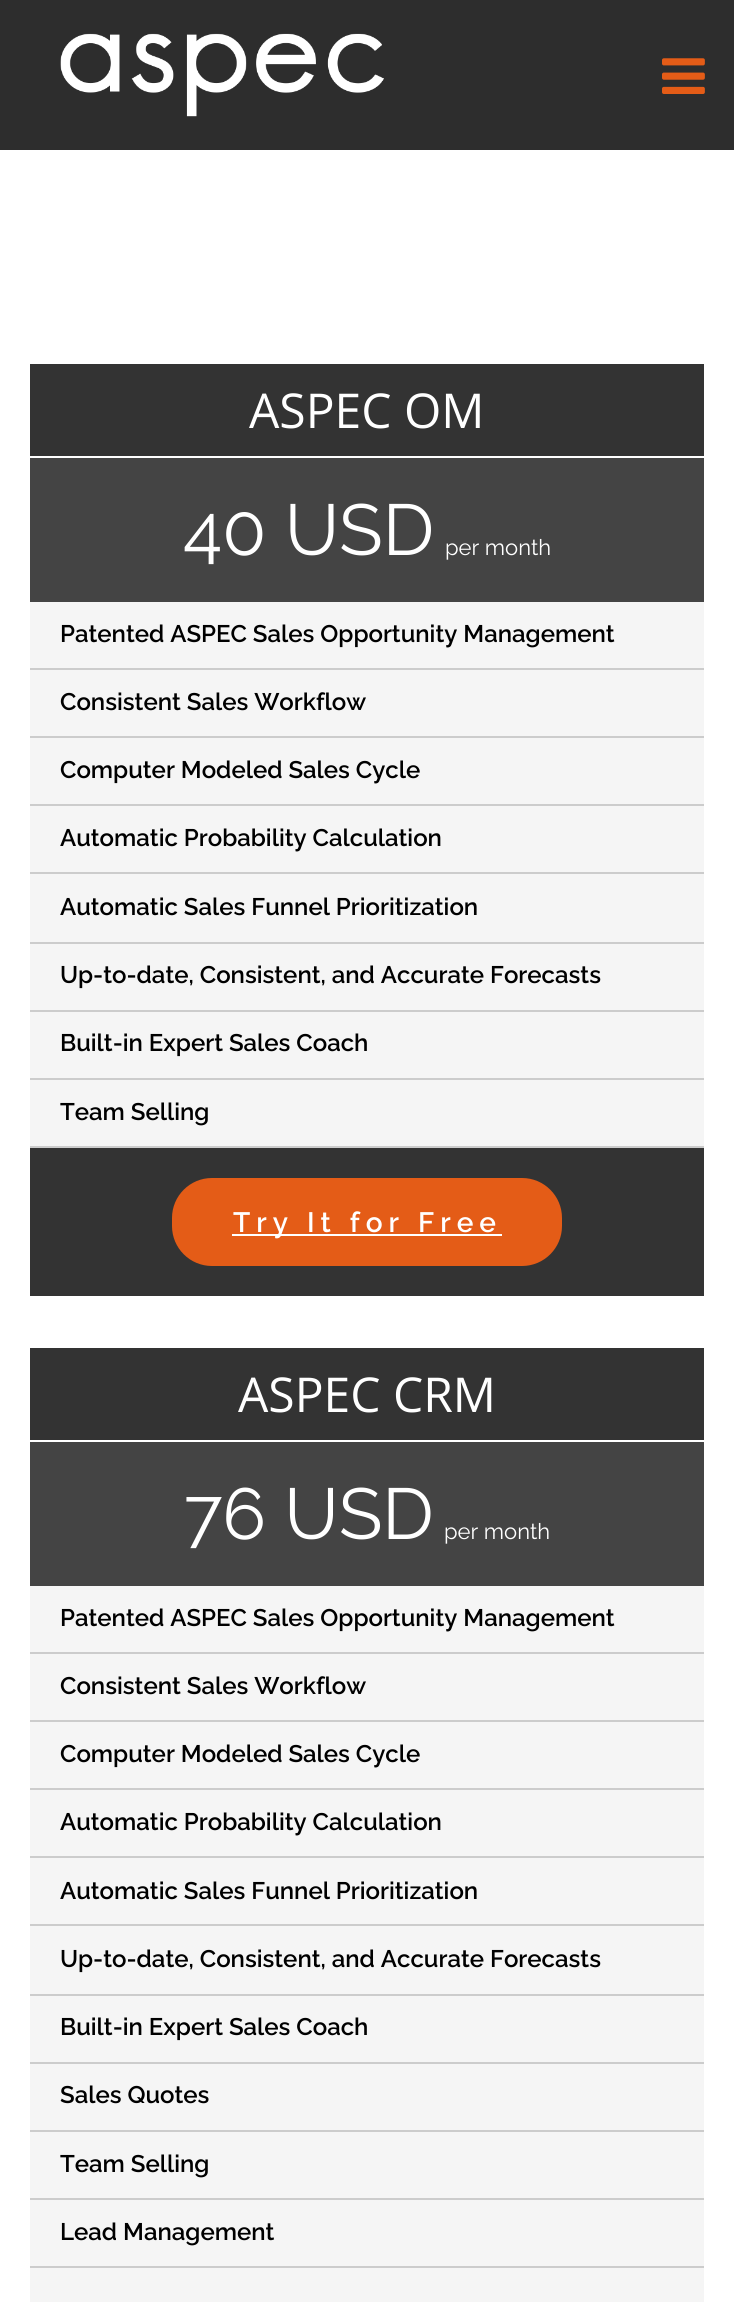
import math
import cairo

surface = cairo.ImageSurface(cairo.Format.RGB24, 734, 2302)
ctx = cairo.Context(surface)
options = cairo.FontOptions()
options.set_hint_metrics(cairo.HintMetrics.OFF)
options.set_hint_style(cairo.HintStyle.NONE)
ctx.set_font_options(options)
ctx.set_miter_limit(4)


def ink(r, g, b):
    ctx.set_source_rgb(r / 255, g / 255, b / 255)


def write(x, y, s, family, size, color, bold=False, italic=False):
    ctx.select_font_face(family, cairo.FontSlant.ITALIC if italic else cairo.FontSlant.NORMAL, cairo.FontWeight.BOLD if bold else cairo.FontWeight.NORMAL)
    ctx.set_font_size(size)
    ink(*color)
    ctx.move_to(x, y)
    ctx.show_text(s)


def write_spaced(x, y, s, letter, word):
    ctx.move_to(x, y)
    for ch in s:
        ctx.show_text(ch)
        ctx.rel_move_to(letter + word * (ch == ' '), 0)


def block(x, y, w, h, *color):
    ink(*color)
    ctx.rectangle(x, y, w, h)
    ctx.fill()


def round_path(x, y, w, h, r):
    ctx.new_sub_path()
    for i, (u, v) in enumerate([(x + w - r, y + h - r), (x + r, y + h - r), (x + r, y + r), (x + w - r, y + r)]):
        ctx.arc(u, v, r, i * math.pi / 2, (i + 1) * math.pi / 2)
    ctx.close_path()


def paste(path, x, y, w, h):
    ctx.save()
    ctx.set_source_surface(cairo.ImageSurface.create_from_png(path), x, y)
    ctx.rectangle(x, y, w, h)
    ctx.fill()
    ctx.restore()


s1 = dict(family="Open Sans", size=48, color=(255, 255, 255))
s2 = dict(family="Raleway", size=72, color=(255, 255, 255))
s3 = dict(family="Raleway", size=22, color=(255, 255, 255))
s4 = dict(family="Raleway SemiBold", size=24, color=(0, 0, 0))

ink(255, 255, 255)
ctx.paint()
block(0, 0, 734, 150, 45, 45, 45)
paste("pic1.png", 60, 33, 324, 84)
paste("pic2.png", 662, 58, 43, 36)
block(30, 364, 674, 92, 51, 51, 51)
write(249, 428, "ASPEC OM", **s1)
block(30, 458, 674, 144, 68, 68, 68)
write(183, 555, "40 USD", **s2)
write(445, 555, "per month", **s3)
block(30, 602, 674, 544, 245, 245, 245)
block(30, 668, 674, 2, 204, 204, 204)
write(60, 642, "Patented ASPEC Sales Opportunity Management", **s4)
block(30, 736, 674, 2, 204, 204, 204)
write(60, 710, "Consistent Sales Workflow", **s4)
block(30, 804, 674, 2, 204, 204, 204)
write(60, 778, "Computer Modeled Sales Cycle", **s4)
block(30, 872, 674, 2, 204, 204, 204)
write(60, 846, "Automatic Probability Calculation", **s4)
block(30, 942, 674, 2, 204, 204, 204)
write(60, 915, "Automatic Sales Funnel Prioritization", **s4)
block(30, 1010, 674, 2, 204, 204, 204)
write(60, 983, "Up-to-date, Consistent, and Accurate Forecasts", **s4)
block(30, 1078, 674, 2, 204, 204, 204)
write(60, 1051, "Built-in Expert Sales Coach", **s4)
block(30, 1146, 674, 2, 204, 204, 204)
write(60, 1120, "Team Selling", **s4)
block(30, 1148, 674, 148, 51, 51, 51)
ink(228, 92, 23)
round_path(172, 1178, 390, 88, 40)
ctx.fill()
block(232, 1234, 270, 2, 255, 255, 255)
ctx.set_font_size(28)
write_spaced(233, 1232, "Try It for Free", 6, 0)
block(30, 1348, 674, 92, 51, 51, 51)
write(238, 1412, "ASPEC CRM", **s1)
block(30, 1442, 674, 144, 68, 68, 68)
write(184, 1539, "76 USD", **s2)
write(444, 1539, "per month", **s3)
block(30, 1586, 674, 716, 245, 245, 245)
block(30, 1652, 674, 2, 204, 204, 204)
write(60, 1626, "Patented ASPEC Sales Opportunity Management", **s4)
block(30, 1720, 674, 2, 204, 204, 204)
write(60, 1694, "Consistent Sales Workflow", **s4)
block(30, 1788, 674, 2, 204, 204, 204)
write(60, 1762, "Computer Modeled Sales Cycle", **s4)
block(30, 1856, 674, 2, 204, 204, 204)
write(60, 1830, "Automatic Probability Calculation", **s4)
block(30, 1924, 674, 2, 204, 204, 204)
write(60, 1899, "Automatic Sales Funnel Prioritization", **s4)
block(30, 1994, 674, 2, 204, 204, 204)
write(60, 1967, "Up-to-date, Consistent, and Accurate Forecasts", **s4)
block(30, 2062, 674, 2, 204, 204, 204)
write(60, 2035, "Built-in Expert Sales Coach", **s4)
block(30, 2130, 674, 2, 204, 204, 204)
write(60, 2103, "Sales Quotes", **s4)
block(30, 2198, 674, 2, 204, 204, 204)
write(60, 2172, "Team Selling", **s4)
block(30, 2266, 674, 2, 204, 204, 204)
write(60, 2240, "Lead Management", **s4)
surface.write_to_png("screenshot.png")
